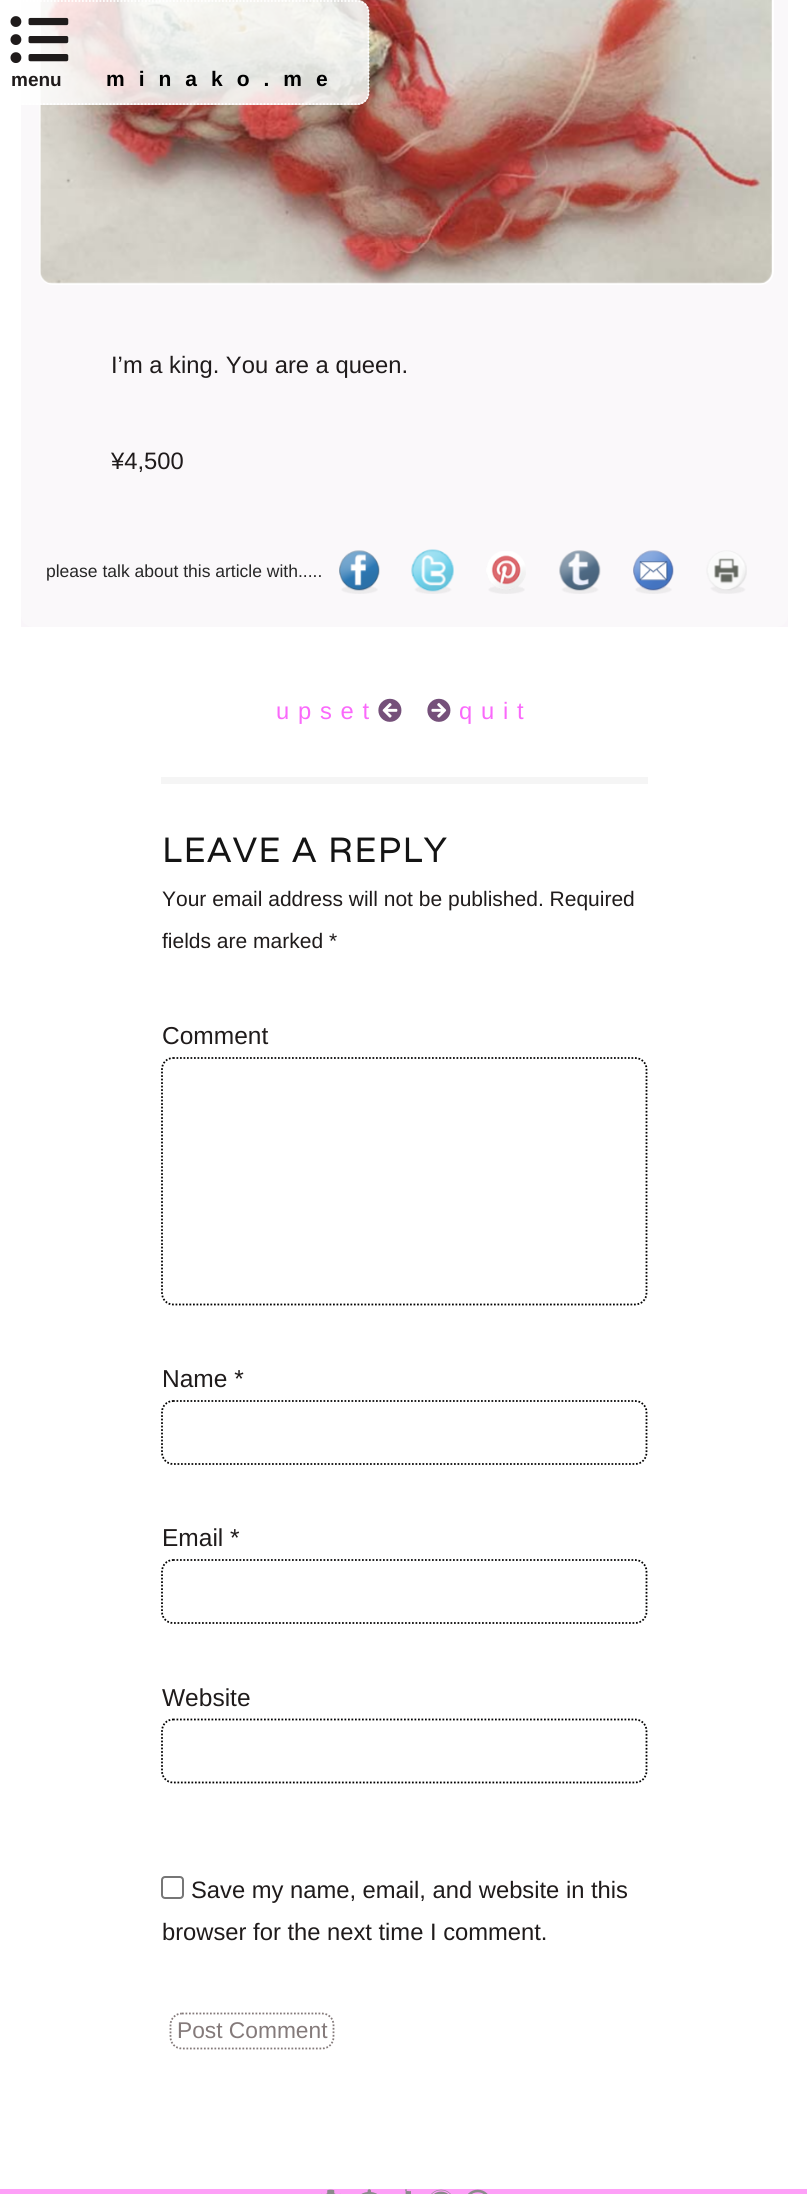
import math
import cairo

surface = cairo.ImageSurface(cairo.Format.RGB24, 807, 2194)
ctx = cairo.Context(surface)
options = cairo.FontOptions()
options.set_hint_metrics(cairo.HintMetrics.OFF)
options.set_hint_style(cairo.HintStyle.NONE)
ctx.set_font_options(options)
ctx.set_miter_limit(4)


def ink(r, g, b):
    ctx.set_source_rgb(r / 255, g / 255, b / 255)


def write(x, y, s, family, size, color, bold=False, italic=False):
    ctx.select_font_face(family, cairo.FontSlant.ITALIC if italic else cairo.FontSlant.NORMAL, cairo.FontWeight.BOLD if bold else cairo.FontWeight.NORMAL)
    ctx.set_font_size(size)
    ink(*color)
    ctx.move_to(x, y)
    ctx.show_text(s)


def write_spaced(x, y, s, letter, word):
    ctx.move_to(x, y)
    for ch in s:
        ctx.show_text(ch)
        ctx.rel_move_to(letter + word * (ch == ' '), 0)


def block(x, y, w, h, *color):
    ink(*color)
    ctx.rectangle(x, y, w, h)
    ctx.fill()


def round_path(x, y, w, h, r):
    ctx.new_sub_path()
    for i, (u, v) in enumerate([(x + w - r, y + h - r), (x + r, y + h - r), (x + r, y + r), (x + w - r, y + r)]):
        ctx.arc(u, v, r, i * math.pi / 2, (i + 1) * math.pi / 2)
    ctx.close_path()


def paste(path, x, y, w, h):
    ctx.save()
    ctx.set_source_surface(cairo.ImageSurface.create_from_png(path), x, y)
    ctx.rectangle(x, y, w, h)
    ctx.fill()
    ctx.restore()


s1 = dict(family="Liberation Sans", size=19, color=(31, 27, 27), bold=True)
s2 = dict(family="Liberation Sans", size=23.75, color=(31, 27, 27))
s3 = dict(family="Liberation Sans", size=17.5, color=(39, 39, 39))
s4 = dict(family="Liberation Sans", size=21, color=(31, 27, 27))
s5 = dict(family="Liberation Sans", size=24.5, color=(31, 27, 27))
s6 = dict(family="Liberation Sans", size=22.75, color=(132, 122, 122))

ink(255, 255, 255)
ctx.paint()
block(21, 615, 767, 12, 249, 245, 249)
ink(250, 248, 250)
round_path(21, -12, 767, 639, 12)
ctx.fill()
round_path(40, -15, 733, 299, 13)
ink(255, 255, 255)
ctx.stroke()
paste("pic2.png", 39, 0, 733, 284)
ctx.set_source_rgba(1, 1, 1, 0.82)
round_path(0, 0, 369, 105, 12)
ctx.fill()
ctx.new_path()
ctx.move_to(12, 1)
ctx.line_to(357, 1)
ctx.curve_to(363.5, 1, 368.5, 6, 368.5, 12)
ctx.line_to(368.5, 93)
ctx.curve_to(368.5, 99, 363.5, 104, 357, 104)
ctx.line_to(12, 104)
ctx.curve_to(6, 104, 1, 99, 1, 93)
ctx.line_to(1, 12)
ctx.curve_to(1, 6, 6, 1, 12, 1)
ctx.close_path()
ink(255, 255, 255)
ctx.set_line_width(1.8)
ctx.set_dash([1.75, 1.75])
ctx.stroke()
paste("pic1.png", 10, 16, 59, 47)
write(11, 86, "menu", **s1)
ctx.set_font_size(21)
ink(0, 0, 0)
write_spaced(106, 86, "minako.me", 14, 0)
write(111, 373, "I’m a king. You are a queen.", **s2)
write(111, 469, "¥4,500", **s2)
write(46, 577, "please talk about this article with.....", **s3)
paste("pic3.png", 339, 550, 41, 44)
paste("pic4.png", 411, 549, 43, 45)
paste("pic5.png", 486, 551, 40, 43)
paste("pic6.png", 559, 550, 42, 44)
paste("pic7.png", 633, 550, 41, 44)
paste("pic8.png", 706, 550, 41, 44)
ctx.set_font_size(23.75)
ink(250, 105, 251)
write_spaced(276, 719, "upset", 8.75, 0)
paste("pic9.png", 378, 698, 24, 24)
paste("pic10.png", 427, 698, 24, 24)
write_spaced(459, 719, "quit", 8.75, 0)
block(161, 777, 487, 7, 245, 245, 245)
ctx.select_font_face("Varela")
ctx.set_font_size(35)
ink(20, 20, 20)
write_spaced(162, 862, "LEAVE A REPLY", 1.25, 0)
write(162, 906, "Your email address will not be published. Required", **s4)
write(162, 948, "fields are marked *", **s4)
write(162, 1044, "Comment", **s5)
ctx.new_path()
ctx.move_to(173, 1058)
ctx.line_to(635, 1058)
ctx.curve_to(641.5, 1058, 646.5, 1063, 646.5, 1069)
ctx.line_to(646.5, 1293)
ctx.curve_to(646.5, 1299.5, 641.5, 1304.5, 635, 1304.5)
ctx.line_to(173, 1304.5)
ctx.curve_to(167, 1304.5, 162, 1299.5, 162, 1293)
ctx.line_to(162, 1069)
ctx.curve_to(162, 1063, 167, 1058, 173, 1058)
ctx.close_path()
ink(1, 0, 0)
ctx.stroke()
write(162, 1387, "Name *", **s5)
ctx.new_path()
ctx.move_to(173, 1401)
ctx.line_to(635, 1401)
ctx.curve_to(641.5, 1401, 646.5, 1406, 646.5, 1412)
ctx.line_to(646.5, 1452.5)
ctx.curve_to(646.5, 1459, 641.5, 1464, 635, 1464)
ctx.line_to(173, 1464)
ctx.curve_to(167, 1464, 162, 1459, 162, 1452.5)
ctx.line_to(162, 1412)
ctx.curve_to(162, 1406, 167, 1401, 173, 1401)
ctx.close_path()
ink(1, 0, 0)
ctx.stroke()
write(162, 1546, "Email *", **s5)
ctx.new_path()
ctx.move_to(173, 1560)
ctx.line_to(635, 1560)
ctx.curve_to(641.5, 1560, 646.5, 1565, 646.5, 1571.5)
ctx.line_to(646.5, 1612)
ctx.curve_to(646.5, 1618, 641.5, 1623, 635, 1623)
ctx.line_to(173, 1623)
ctx.curve_to(167, 1623, 162, 1618, 162, 1612)
ctx.line_to(162, 1571.5)
ctx.curve_to(162, 1565, 167, 1560, 173, 1560)
ctx.close_path()
ink(1, 0, 0)
ctx.stroke()
write(162, 1706, "Website", **s5)
ctx.new_path()
ctx.move_to(173, 1719.5)
ctx.line_to(635, 1719.5)
ctx.curve_to(641.5, 1719.5, 646.5, 1724.5, 646.5, 1731)
ctx.line_to(646.5, 1771)
ctx.curve_to(646.5, 1777.5, 641.5, 1782.5, 635, 1782.5)
ctx.line_to(173, 1782.5)
ctx.curve_to(167, 1782.5, 162, 1777.5, 162, 1771)
ctx.line_to(162, 1731)
ctx.curve_to(162, 1724.5, 167, 1719.5, 173, 1719.5)
ctx.close_path()
ink(1, 0, 0)
ctx.stroke()
round_path(162, 1877, 21, 21, 3)
ink(118, 118, 118)
ctx.set_line_width(2)
ctx.set_dash([])
ctx.stroke()
write(191, 1898, "Save my name, email, and website in this", **s2)
write(162, 1940, "browser for the next time I comment.", **s2)
ctx.new_path()
ctx.move_to(182, 2013.5)
ctx.line_to(322, 2013.5)
ctx.curve_to(328.5, 2013.5, 333.5, 2018.5, 333.5, 2025)
ctx.line_to(333.5, 2037)
ctx.curve_to(333.5, 2043.5, 328.5, 2048.5, 322, 2048.5)
ctx.line_to(182, 2048.5)
ctx.curve_to(175.5, 2048.5, 170.5, 2043.5, 170.5, 2037)
ctx.line_to(170.5, 2025)
ctx.curve_to(170.5, 2018.5, 175.5, 2013.5, 182, 2013.5)
ctx.close_path()
ink(132, 122, 122)
ctx.set_line_width(1.8)
ctx.set_dash([1.75, 1.75])
ctx.stroke()
write(177, 2038, "Post Comment", **s6)
block(0, 2189, 807, 5, 253, 160, 247)
paste("pic11.png", 321, 2189, 20, 5)
paste("pic12.png", 361, 2189, 16, 5)
paste("pic13.png", 405, 2189, 6, 5)
paste("pic14.png", 431, 2189, 20, 5)
paste("pic15.png", 468, 2189, 20, 5)
surface.write_to_png("screenshot.png")
